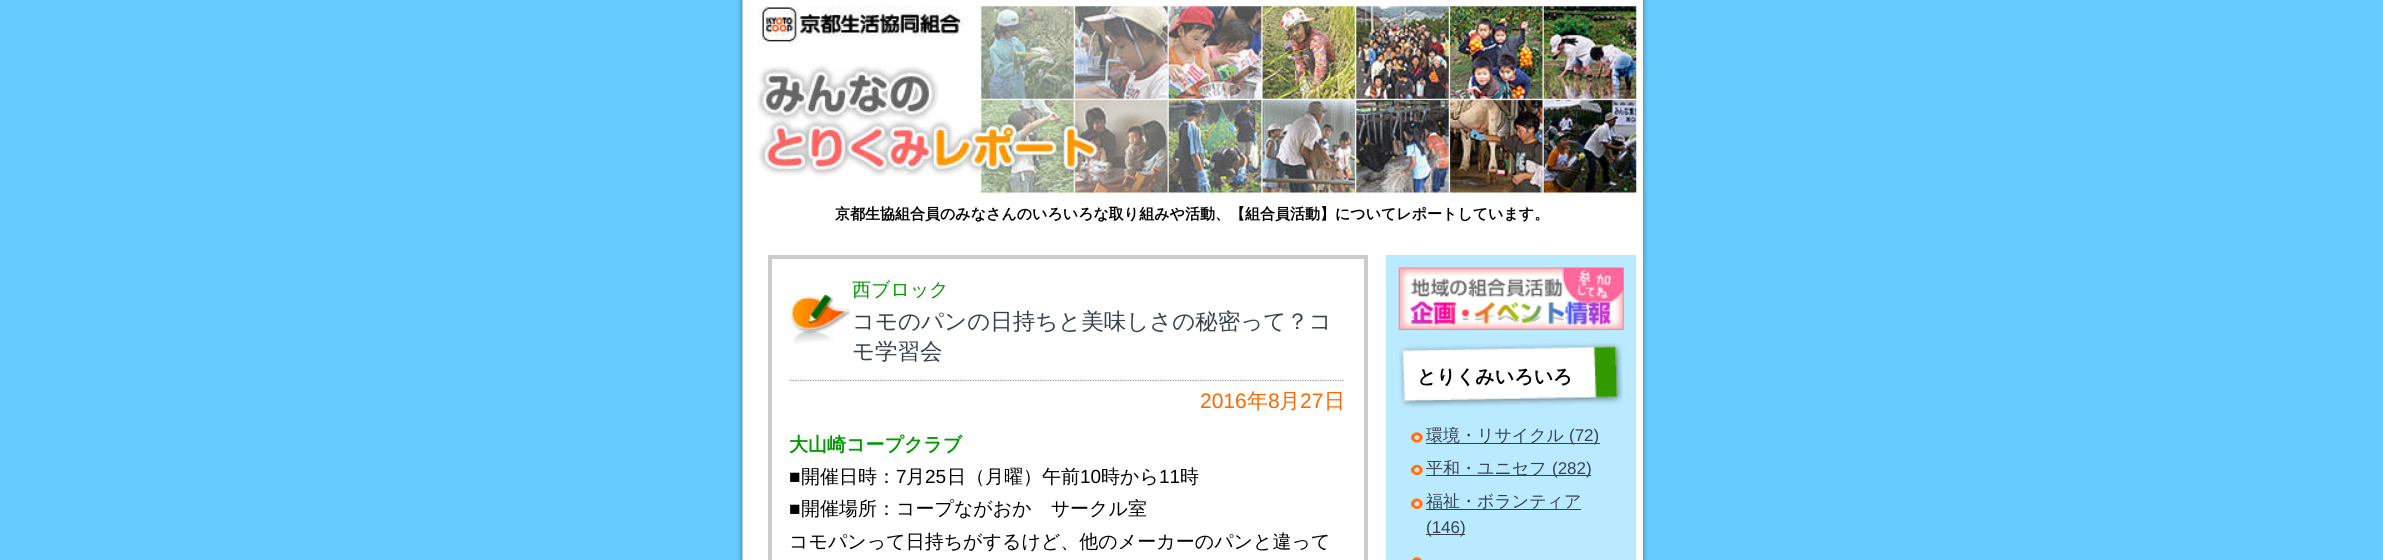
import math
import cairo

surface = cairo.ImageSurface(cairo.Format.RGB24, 2383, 560)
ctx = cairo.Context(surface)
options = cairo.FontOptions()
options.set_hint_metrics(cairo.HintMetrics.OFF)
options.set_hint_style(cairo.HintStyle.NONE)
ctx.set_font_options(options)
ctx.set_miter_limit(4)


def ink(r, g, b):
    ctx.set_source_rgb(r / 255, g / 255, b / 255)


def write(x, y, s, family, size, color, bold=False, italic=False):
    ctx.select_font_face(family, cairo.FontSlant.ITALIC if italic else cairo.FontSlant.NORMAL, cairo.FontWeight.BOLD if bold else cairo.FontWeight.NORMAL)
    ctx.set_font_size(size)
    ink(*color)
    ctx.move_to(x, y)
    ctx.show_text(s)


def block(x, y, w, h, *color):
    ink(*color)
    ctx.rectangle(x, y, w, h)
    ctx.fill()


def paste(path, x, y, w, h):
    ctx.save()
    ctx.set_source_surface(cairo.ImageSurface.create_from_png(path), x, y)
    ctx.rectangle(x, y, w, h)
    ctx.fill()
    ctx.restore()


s1 = dict(family="WenQuanYi Zen Hei", size=15, color=(0, 0, 0), bold=True)
s2 = dict(family="WenQuanYi Zen Hei Medium", size=19, color=(0, 153, 0))
s3 = dict(family="WenQuanYi Zen Hei Medium", size=22.5, color=(54, 65, 77))
s4 = dict(family="Liberation Sans", size=21, color=(255, 102, 0))
s5 = dict(family="WenQuanYi Zen Hei Medium", size=21, color=(255, 102, 0))
s6 = dict(family="WenQuanYi Zen Hei", size=19, color=(0, 153, 0), bold=True)
s7 = dict(family="Liberation Sans", size=19, color=(0, 0, 0))
s8 = dict(family="WenQuanYi Zen Hei Medium", size=19, color=(0, 0, 0))
s9 = dict(family="WenQuanYi Zen Hei", size=19, color=(0, 0, 0), bold=True)
s10 = dict(family="WenQuanYi Zen Hei Medium", size=17, color=(54, 65, 77))
s11 = dict(family="Liberation Sans", size=17, color=(54, 65, 77))

ink(102, 204, 255)
ctx.paint()
paste("pic1.png", 737, 0, 911, 560)
block(1642, 0, 1, 560, 255, 255, 255)
paste("pic2.png", 756, 6, 881, 188)
write(835, 219, "京都生協組合員のみなさんのいろいろな取り組みや活動、【組合員活動】についてレポートしています。", **s1)
ctx.rectangle(770, 257, 596, 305)
ink(204, 204, 204)
ctx.set_line_width(4)
ctx.stroke()
paste("pic3.png", 790, 293, 60, 51)
ctx.new_path()
ctx.move_to(790, 380.5)
ctx.line_to(1345, 380.5)
ink(153, 153, 153)
ctx.set_line_width(1.2)
ctx.set_dash([1.25, 1.25])
ctx.stroke()
write(852, 296, "西ブロック", **s2)
write(852, 329, "コモのパンの日持ちと美味しさの秘密って？コ", **s3)
write(852, 359, "モ学習会", **s3)
write(1200, 408, "2016", **s4)
write(1247, 408, "年", **s5)
write(1268, 408, "8", **s4)
write(1279, 408, "月", **s5)
write(1300, 408, "27", **s4)
write(1324, 408, "日", **s5)
write(789, 451, "大山崎コープクラブ", **s6)
write(789, 483, "■", **s7)
write(801, 483, "開催日時：", **s8)
write(896, 483, "7", **s7)
write(906, 483, "月", **s8)
write(925, 483, "25", **s7)
write(947, 483, "日（月曜）午前", **s8)
write(1080, 483, "10", **s7)
write(1101, 483, "時から", **s8)
write(1159, 483, "11", **s7)
write(1180, 483, "時", **s8)
write(789, 515, "■", **s7)
write(801, 515, "開催場所：コープながおか　サークル室", **s8)
write(789, 548, "コモパンって日持ちがするけど、他のメーカーのパンと違って", **s8)
block(1386, 255, 250, 305, 186, 234, 255)
paste("pic4.png", 1398, 267, 226, 63)
paste("pic5.png", 1399, 343, 224, 65)
write(1417, 383, "とりくみいろいろ", **s9)
paste("pic6.png", 1411, 432, 12, 11)
block(1426, 443, 174, 1, 54, 65, 77)
write(1426, 441, "環境・リサイクル", **s10)
write(1569, 441, "(72)", **s11)
paste("pic7.png", 1411, 465, 12, 10)
block(1426, 475, 165, 1, 54, 65, 77)
write(1426, 474, "平和・ユニセフ", **s10)
write(1552, 474, "(282)", **s11)
paste("pic8.png", 1411, 498, 12, 11)
block(1426, 509, 155, 1, 54, 65, 77)
write(1426, 507, "福祉・ボランティア", **s10)
block(1426, 534, 39, 1, 54, 65, 77)
write(1426, 533, "(146)", **s11)
paste("pic9.png", 1411, 557, 12, 3)
surface.write_to_png("screenshot.png")
